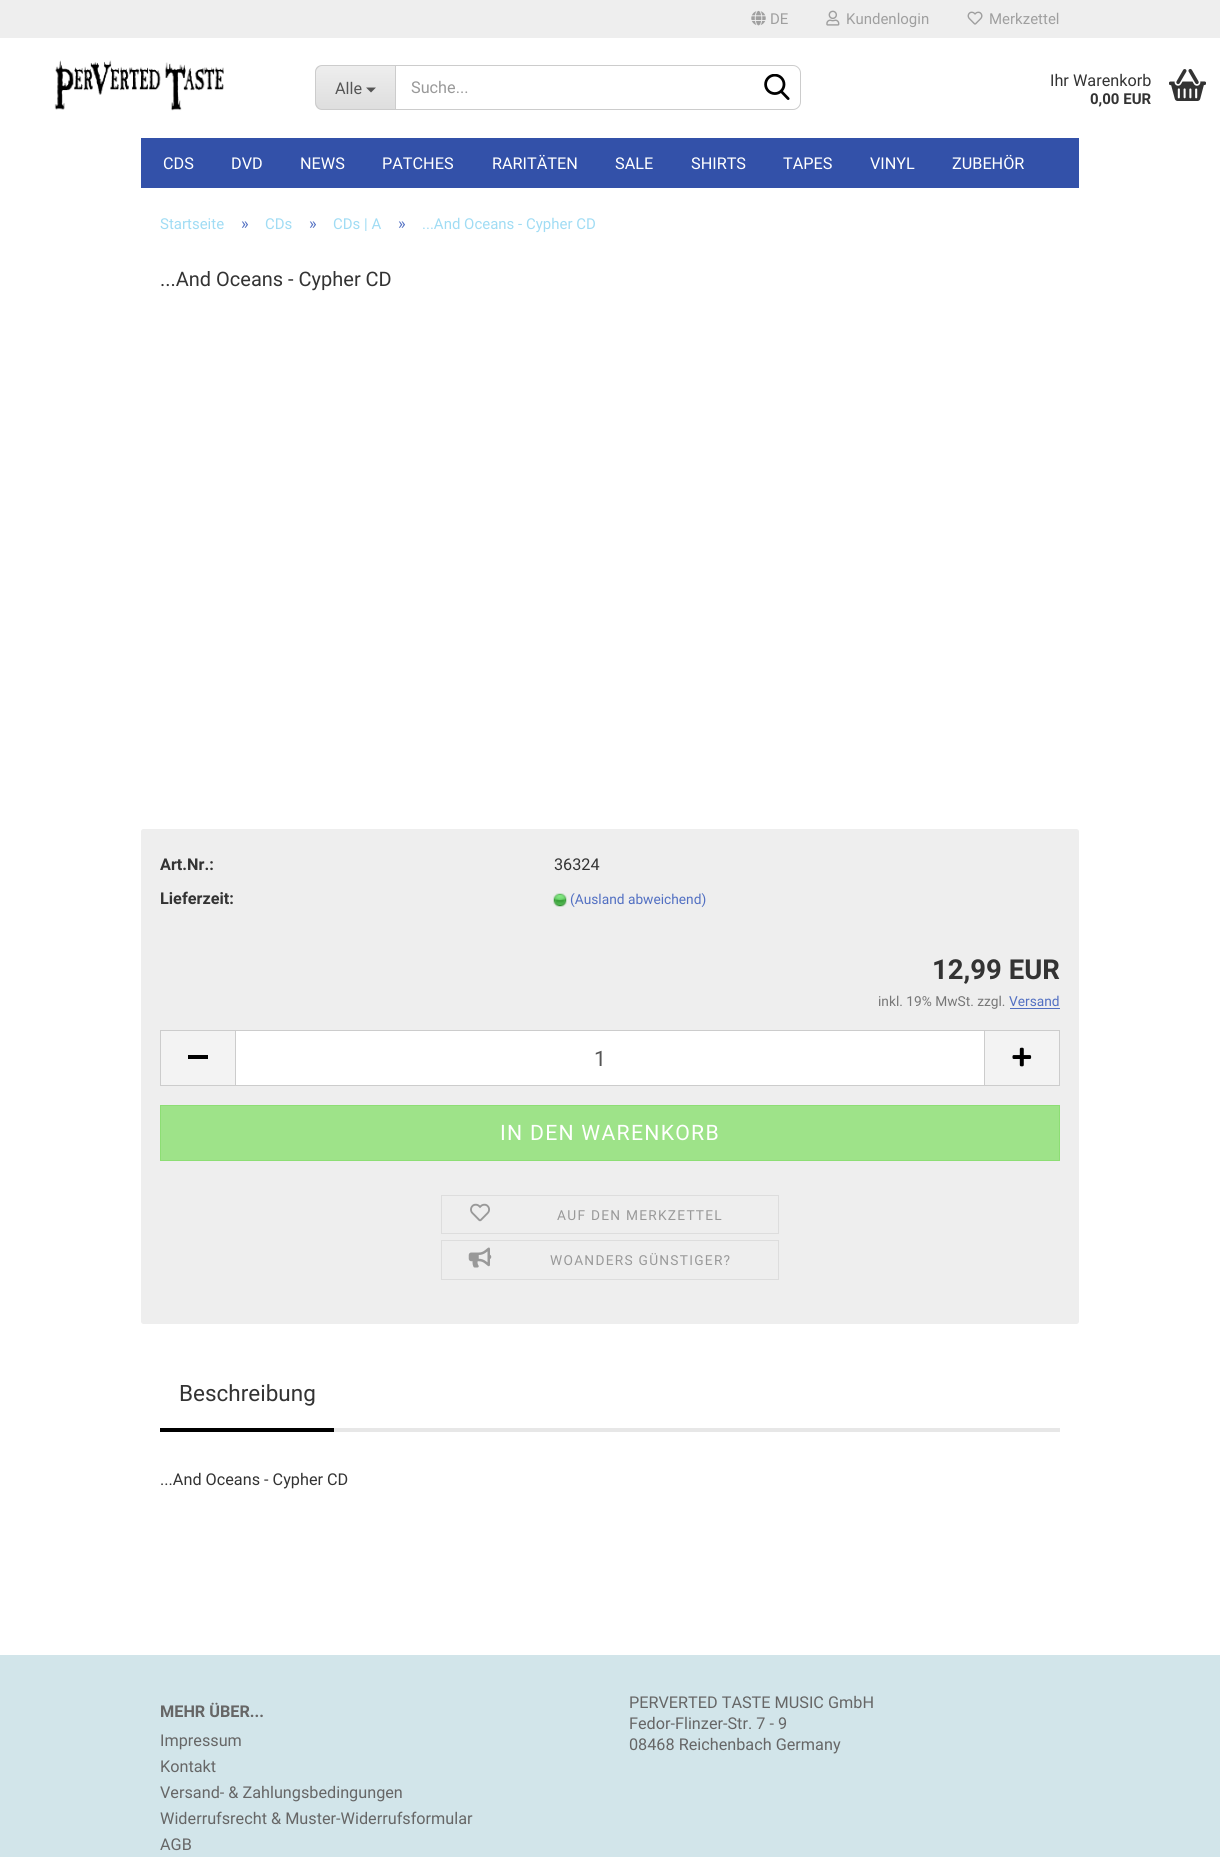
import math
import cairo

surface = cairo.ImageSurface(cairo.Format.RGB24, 1220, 1857)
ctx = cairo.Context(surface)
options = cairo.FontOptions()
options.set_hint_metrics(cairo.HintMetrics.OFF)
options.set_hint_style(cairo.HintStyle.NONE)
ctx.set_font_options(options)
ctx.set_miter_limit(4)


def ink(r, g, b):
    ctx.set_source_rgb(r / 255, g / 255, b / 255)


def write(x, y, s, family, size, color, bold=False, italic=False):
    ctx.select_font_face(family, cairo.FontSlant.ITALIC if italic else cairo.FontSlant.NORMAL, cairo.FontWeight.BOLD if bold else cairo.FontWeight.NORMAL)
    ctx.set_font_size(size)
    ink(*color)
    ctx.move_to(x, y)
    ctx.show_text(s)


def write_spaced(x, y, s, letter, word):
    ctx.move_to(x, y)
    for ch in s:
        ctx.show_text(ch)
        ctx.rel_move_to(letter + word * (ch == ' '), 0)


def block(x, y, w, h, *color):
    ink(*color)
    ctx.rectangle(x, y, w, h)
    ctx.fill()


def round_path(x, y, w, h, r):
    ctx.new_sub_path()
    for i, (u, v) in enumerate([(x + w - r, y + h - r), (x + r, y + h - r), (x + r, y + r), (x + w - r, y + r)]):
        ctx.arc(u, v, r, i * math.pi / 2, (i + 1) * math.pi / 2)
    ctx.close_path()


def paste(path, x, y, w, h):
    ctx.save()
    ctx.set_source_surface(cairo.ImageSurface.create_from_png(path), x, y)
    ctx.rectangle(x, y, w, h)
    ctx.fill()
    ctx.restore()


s1 = dict(family="Roboto", size=15, color=(159, 159, 159))
s2 = dict(family="Roboto", size=16.25, color=(85, 85, 85))
s3 = dict(family="Roboto", size=16.25, color=(153, 153, 153))
s4 = dict(family="Roboto", size=16.25, color=(51, 51, 51))
s5 = dict(family="Roboto", size=15, color=(51, 51, 51), bold=True)
s6 = dict(family="Roboto", size=16.25, color=(255, 255, 255))
s7 = dict(family="Roboto", size=15, color=(160, 220, 244))
s8 = dict(family="Roboto", size=16.25, color=(81, 111, 194))
s9 = dict(family="Roboto", size=20, color=(51, 51, 51))
s10 = dict(family="Roboto", size=16.25, color=(51, 51, 51), bold=True)
s11 = dict(family="Roboto", size=13.75, color=(81, 111, 194))
s12 = dict(family="Roboto", size=27.5, color=(51, 51, 51), bold=True)
s13 = dict(family="Roboto", size=13.75, color=(119, 119, 119))
s14 = dict(family="Roboto", size=21.25, color=(85, 85, 85))
s15 = dict(family="Roboto", size=22.5, color=(51, 51, 51))
s16 = dict(family="Roboto", size=16.25, color=(102, 102, 102), bold=True)
s17 = dict(family="Roboto", size=16.25, color=(102, 102, 102))

ink(255, 255, 255)
ctx.paint()
block(0, 0, 1220, 38, 238, 238, 238)
paste("pic1.png", 751, 10, 15, 16)
write(770, 24, "DE", **s1)
paste("pic2.png", 826, 10, 14, 16)
write(846, 24, "Kundenlogin", **s1)
paste("pic3.png", 967, 11, 16, 14)
write(989, 24, "Merkzettel", **s1)
paste("pic4.png", 54, 60, 170, 51)
ctx.save()
ctx.new_path()
ctx.move_to(323, 65)
ctx.line_to(395, 65)
ctx.line_to(395, 110)
ctx.line_to(323, 110)
ctx.curve_to(318.5, 110, 315, 106.5, 315, 102)
ctx.line_to(315, 73)
ctx.curve_to(315, 68.5, 318.5, 65, 323, 65)
ctx.close_path()
ctx.clip()
gradient = cairo.LinearGradient(356, 66, 356, 109)
gradient.add_color_stop_rgba(0, 0.933, 0.933, 0.933, 1)
gradient.add_color_stop_rgba(1, 0.871, 0.871, 0.871, 1)
ctx.set_source(gradient)
ctx.rectangle(315, 66, 80, 43)
ctx.fill()
ctx.restore()
ink(204, 204, 204)
ctx.set_fill_rule(cairo.FillRule.EVEN_ODD)
ctx.new_path()
ctx.move_to(322, 65)
ctx.line_to(395, 65)
ctx.line_to(395, 110)
ctx.line_to(322, 110)
ctx.curve_to(318, 110, 315, 107, 315, 102)
ctx.line_to(315, 72)
ctx.curve_to(315, 68, 318, 65, 322, 65)
ctx.close_path()
ctx.move_to(322, 66)
ctx.line_to(395, 66)
ctx.line_to(395, 109)
ctx.line_to(322, 109)
ctx.curve_to(319, 109, 316, 106, 316, 102)
ctx.line_to(316, 72)
ctx.curve_to(316, 69, 319, 66, 322, 66)
ctx.close_path()
ctx.fill()
write(335, 94, "Alle", **s2)
ctx.set_fill_rule(cairo.FillRule.WINDING)
ctx.new_path()
ctx.move_to(366, 87.5)
ctx.line_to(376, 87.5)
ctx.line_to(371, 92.5)
ctx.close_path()
ctx.fill()
ctx.new_path()
ctx.move_to(395.5, 65.5)
ctx.line_to(793, 65.5)
ctx.curve_to(797, 65.5, 800.5, 69, 800.5, 73)
ctx.line_to(800.5, 102)
ctx.curve_to(800.5, 106, 797, 109.5, 793, 109.5)
ctx.line_to(395.5, 109.5)
ctx.close_path()
ink(204, 204, 204)
ctx.set_line_width(1)
ctx.stroke()
write(411, 93, "Suche...", **s3)
paste("pic5.png", 764, 74, 26, 26)
write(1050, 86, "Ihr Warenkorb", **s4)
write(1090, 104, "0,00 EUR", **s5)
paste("pic6.png", 1169, 68, 37, 33)
block(141, 138, 938, 50, 51, 81, 169)
write(163, 169, "CDS", **s6)
write(231, 169, "DVD", **s6)
write(300, 169, "NEWS", **s6)
write(382, 169, "PATCHES", **s6)
write(492, 169, "RARITÄTEN", **s6)
write(615, 169, "SALE", **s6)
write(691, 169, "SHIRTS", **s6)
write(783, 169, "TAPES", **s6)
write(870, 169, "VINYL", **s6)
write(952, 169, "ZUBEHÖR", **s6)
write(160, 229, "Startseite", **s7)
write(241, 229, "»", **s8)
write(265, 229, "CDs", **s7)
write(309, 229, "»", **s8)
write(333, 229, "CDs | A", **s7)
write(398, 229, "»", **s8)
write(422, 229, "...And Oceans - Cypher CD", **s7)
write(160, 286, "...And Oceans - Cypher CD", **s9)
ink(238, 238, 238)
round_path(141, 829, 938, 495, 2.5)
ctx.fill()
write(160, 870, "Art.Nr.:", **s10)
write(554, 870, "36324", **s4)
write(160, 904, "Lieferzeit:", **s10)
paste("pic7.png", 553, 893, 14, 14)
write(570, 904, "(Ausland abweichend)", **s11)
write(932, 979, "12,99 EUR", **s12)
write(878, 1006, "inkl. 19% MwSt. zzgl.", **s13)
write(1009, 1006, "Versand", **s11)
block(1010, 1008, 50, 1, 81, 111, 194)
block(161, 1031, 74, 54, 243, 243, 243)
block(160, 1030, 75, 1, 204, 204, 204)
block(160, 1085, 75, 1, 204, 204, 204)
block(160, 1030, 1, 56, 204, 204, 204)
block(188, 1055, 20, 4, 0, 0, 0)
ink(255, 255, 255)
ctx.rectangle(235.5, 1030.5, 749, 55)
ctx.fill_preserve()
ink(204, 204, 204)
ctx.stroke()
write(594, 1066, "1", **s14)
block(985, 1031, 74, 54, 243, 243, 243)
block(985, 1030, 75, 1, 204, 204, 204)
block(1059, 1030, 1, 56, 204, 204, 204)
block(985, 1085, 75, 1, 204, 204, 204)
paste("pic8.png", 1012, 1047, 20, 20)
ink(158, 227, 137)
ctx.rectangle(160.5, 1105.5, 899, 55)
ctx.fill_preserve()
ink(141, 222, 116)
ctx.stroke()
ink(255, 255, 255)
write_spaced(500, 1140, "IN DEN WARENKORB", 1.25, 0)
ctx.rectangle(441.5, 1195.5, 337, 38)
ink(221, 221, 221)
ctx.stroke()
paste("pic9.png", 470, 1203, 20, 19)
ctx.set_font_size(13.75)
ink(153, 153, 153)
write_spaced(557, 1220, "AUF DEN MERKZETTEL", 1.25, 0)
ctx.rectangle(441.5, 1240.5, 337, 39)
ink(221, 221, 221)
ctx.stroke()
paste("pic10.png", 468, 1247, 24, 21)
ink(153, 153, 153)
write_spaced(550, 1265, "WOANDERS GÜNSTIGER?", 1.25, 0)
block(334, 1428, 726, 4, 231, 231, 231)
block(160, 1428, 174, 4, 0, 0, 0)
write(179, 1401, "Beschreibung", **s15)
write(160, 1485, "...And Oceans - Cypher CD", **s4)
block(0, 1655, 1220, 202, 210, 229, 234)
write(160, 1717, "MEHR ÜBER...", **s16)
write(160, 1746, "Impressum", **s17)
write(160, 1772, "Kontakt", **s17)
write(160, 1798, "Versand- & Zahlungsbedingungen", **s17)
write(160, 1824, "Widerrufsrecht & Muster-Widerrufsformular", **s17)
write(160, 1850, "AGB", **s17)
write(629, 1708, "PERVERTED TASTE MUSIC GmbH", **s17)
write(629, 1729, "Fedor-Flinzer-Str. 7 - 9", **s17)
write(629, 1750, "08468 Reichenbach Germany", **s17)
surface.write_to_png("screenshot.png")
